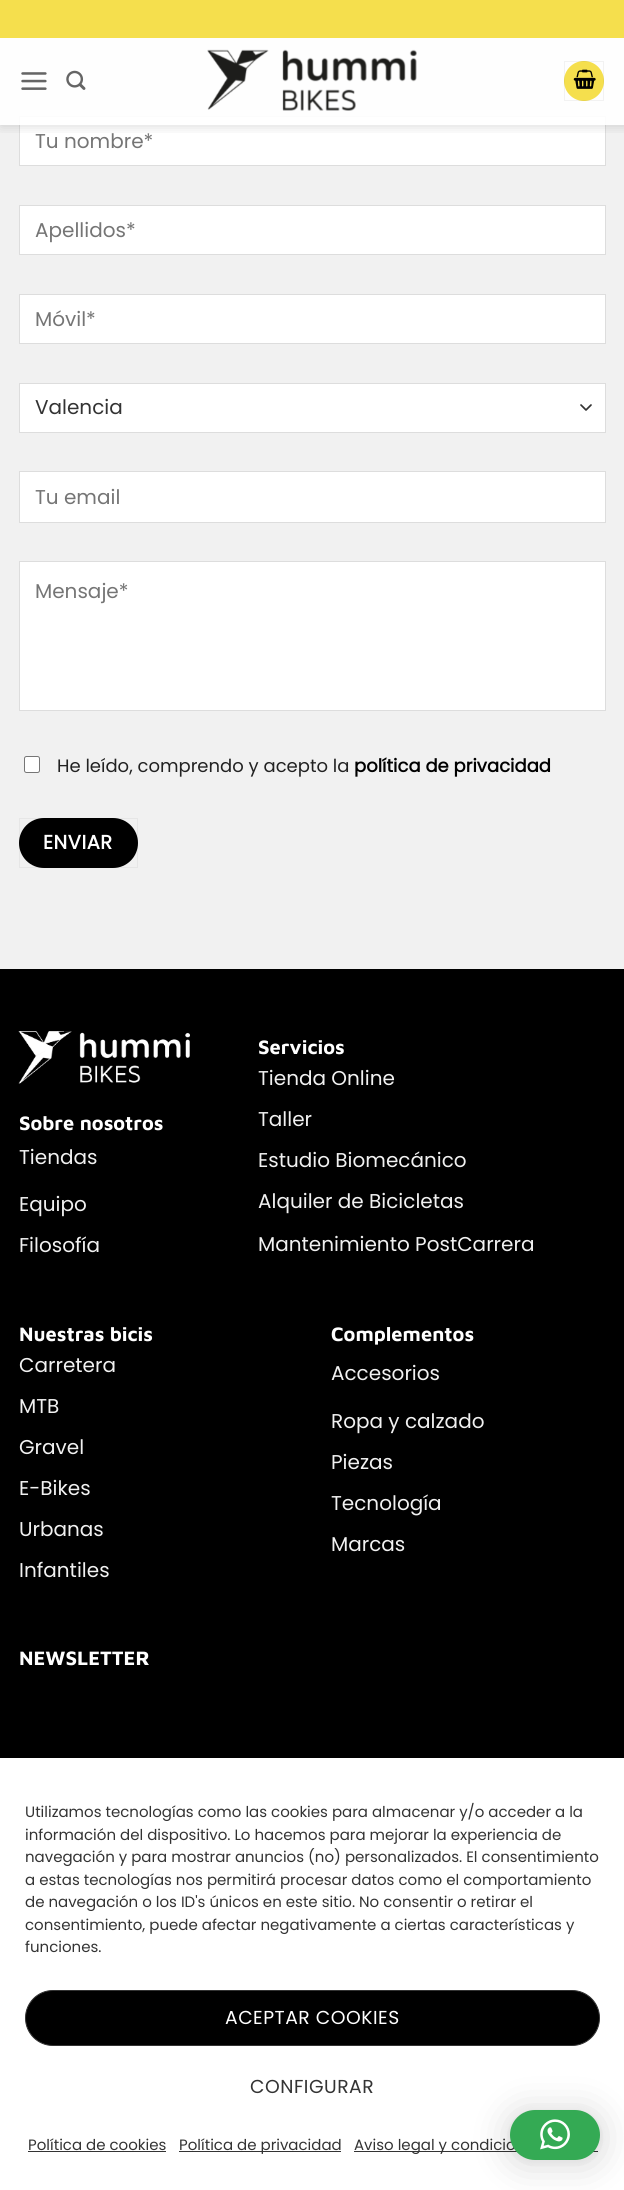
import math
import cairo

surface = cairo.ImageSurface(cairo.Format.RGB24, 624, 2190)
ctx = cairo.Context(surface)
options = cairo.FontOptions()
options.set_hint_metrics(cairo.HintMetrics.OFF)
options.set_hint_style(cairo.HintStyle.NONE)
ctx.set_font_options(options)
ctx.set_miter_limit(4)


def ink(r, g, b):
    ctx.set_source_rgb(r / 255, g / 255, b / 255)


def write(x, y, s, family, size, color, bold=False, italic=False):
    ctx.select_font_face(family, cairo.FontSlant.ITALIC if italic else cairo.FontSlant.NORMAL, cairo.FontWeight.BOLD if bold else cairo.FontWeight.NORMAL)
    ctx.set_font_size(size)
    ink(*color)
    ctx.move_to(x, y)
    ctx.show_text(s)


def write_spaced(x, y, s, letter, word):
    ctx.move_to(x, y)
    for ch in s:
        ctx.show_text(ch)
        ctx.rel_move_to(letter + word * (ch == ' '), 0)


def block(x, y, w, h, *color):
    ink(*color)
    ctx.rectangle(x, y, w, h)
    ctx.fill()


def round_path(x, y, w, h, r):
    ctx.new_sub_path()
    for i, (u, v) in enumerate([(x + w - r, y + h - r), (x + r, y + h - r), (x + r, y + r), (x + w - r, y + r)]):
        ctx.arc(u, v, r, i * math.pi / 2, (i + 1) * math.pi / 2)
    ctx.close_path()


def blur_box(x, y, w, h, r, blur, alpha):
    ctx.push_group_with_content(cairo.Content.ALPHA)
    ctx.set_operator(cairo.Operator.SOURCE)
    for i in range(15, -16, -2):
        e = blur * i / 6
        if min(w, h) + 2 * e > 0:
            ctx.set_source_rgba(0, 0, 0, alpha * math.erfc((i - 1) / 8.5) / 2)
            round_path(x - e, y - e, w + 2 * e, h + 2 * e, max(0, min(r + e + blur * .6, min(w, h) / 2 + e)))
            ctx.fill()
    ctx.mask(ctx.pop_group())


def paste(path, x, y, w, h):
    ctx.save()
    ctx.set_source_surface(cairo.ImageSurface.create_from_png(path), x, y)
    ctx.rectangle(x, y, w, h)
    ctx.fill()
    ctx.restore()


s1 = dict(family="Poppins", size=20, color=(117, 117, 117))
s2 = dict(family="Poppins", size=20, color=(51, 51, 51))
s3 = dict(family="Poppins", size=18, color=(34, 34, 34))
s4 = dict(family="Poppins", size=18, color=(0, 0, 0), bold=True)
s5 = dict(family="Maven Pro", size=20, color=(255, 255, 255), bold=True)
s6 = dict(family="Poppins", size=20, color=(241, 241, 241))
s7 = dict(family="Poppins", size=15, color=(51, 51, 51))

ink(241, 241, 241)
ctx.paint()
ink(255, 255, 255)
ctx.rectangle(19.5, 116.5, 586, 49)
ctx.fill_preserve()
ink(221, 221, 221)
ctx.set_line_width(1)
ctx.stroke()
ctx.save()
ctx.rectangle(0, 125, 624, 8)
ctx.clip()
ink(0, 0, 0)
blur_box(1, 1, 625, 125, 0, 6, 0.15)
ctx.restore()
block(0, 0, 624, 38, 245, 223, 77)
ctx.set_source_rgba(1, 1, 1, 0.9)
ctx.rectangle(0, 38, 624, 87)
ctx.fill()
paste("pic1.png", 21, 72, 26, 18)
paste("pic2.png", 66, 70, 20, 20)
paste("pic3.png", 207, 49, 210, 62)
ink(245, 223, 77)
ctx.arc(584, 81, 20, 0, 2 * math.pi)
ctx.fill()
ctx.rectangle(564.5, 61.5, 39, 39)
ctx.set_source_rgba(0, 0, 0, 0.05)
ctx.stroke()
paste("pic4.png", 573, 69, 23, 20)
write(35, 148, "Tu nombre*", **s1)
ink(255, 255, 255)
ctx.rectangle(19.5, 205.5, 586, 49)
ctx.fill_preserve()
ink(221, 221, 221)
ctx.stroke()
write(35, 237, "Apellidos*", **s1)
ink(255, 255, 255)
ctx.rectangle(19.5, 294.5, 586, 49)
ctx.fill_preserve()
ink(221, 221, 221)
ctx.stroke()
write(35, 326, "Móvil*", **s1)
block(20, 384, 585, 48, 255, 255, 255)
ctx.new_path()
ctx.move_to(581, 405)
ctx.line_to(586, 410)
ctx.line_to(591, 405)
ink(51, 51, 51)
ctx.set_line_width(1.7)
ctx.set_line_cap(cairo.LineCap.ROUND)
ctx.set_line_join(cairo.LineJoin.ROUND)
ctx.stroke()
ctx.rectangle(19.5, 383.5, 586, 49)
ink(221, 221, 221)
ctx.set_line_width(1)
ctx.set_line_cap(cairo.LineCap.BUTT)
ctx.set_line_join(cairo.LineJoin.MITER)
ctx.stroke()
write(35, 414, "Valencia", **s2)
ink(255, 255, 255)
ctx.rectangle(19.5, 471.5, 586, 51)
ctx.fill_preserve()
ink(221, 221, 221)
ctx.stroke()
write(35, 504, "Tu email", **s1)
ink(255, 255, 255)
ctx.rectangle(19.5, 561.5, 586, 149)
ctx.fill_preserve()
ink(221, 221, 221)
ctx.stroke()
write(35, 598, "Mensaje*", **s1)
ink(255, 255, 255)
round_path(24.5, 756.5, 15, 16, 2)
ctx.fill_preserve()
ink(118, 118, 118)
ctx.stroke()
write(57, 772, "He leído, comprendo y acepto la", **s3)
write(354, 772, "política de privacidad", **s4)
round_path(19, 818, 119, 50, 25)
ctx.fill()
ctx.rectangle(19.5, 818.5, 118, 49)
ctx.set_source_rgba(0, 0, 0, 0.05)
ctx.stroke()
ctx.set_font_size(19.5)
ink(255, 255, 255)
write_spaced(43, 849, "ENVIAR", 0.5, 0)
block(0, 969, 624, 789, 0, 0, 0)
paste("pic5.png", 18, 1031, 172, 53)
write(19, 1130, "Sobre nosotros", **s5)
write(19, 1164, "Tiendas", **s6)
write(19, 1211, "Equipo", **s6)
write(19, 1252, "Filosofía", **s6)
write(258, 1054, "Servicios", **s5)
write(258, 1085, "Tienda Online", **s6)
write(258, 1126, "Taller", **s6)
write(258, 1167, "Estudio Biomecánico", **s6)
write(258, 1208, "Alquiler de Bicicletas", **s6)
write(258, 1251, "Mantenimiento PostCarrera", **s6)
write(19, 1341, "Nuestras bicis", **s5)
write(19, 1372, "Carretera", **s6)
write(19, 1413, "MTB", **s6)
write(19, 1454, "Gravel", **s6)
write(19, 1495, "E-Bikes", **s6)
write(19, 1536, "Urbanas", **s6)
write(19, 1577, "Infantiles", **s6)
write(331, 1341, "Complementos", **s5)
write(331, 1380, "Accesorios", **s6)
write(331, 1428, "Ropa y calzado", **s6)
write(331, 1469, "Piezas", **s6)
write(331, 1510, "Tecnología", **s6)
write(331, 1551, "Marcas", **s6)
write(19, 1665, "NEWSLETTER", **s5)
block(0, 1758, 624, 432, 255, 255, 255)
write(25, 1817, "Utilizamos tecnologías como las cookies para almacenar y/o acceder a la", **s7)
write(25, 1840, "información del dispositivo. Lo hacemos para mejorar la experiencia de", **s7)
write(25, 1862, "navegación y para mostrar anuncios (no) personalizados. El consentimiento", **s7)
write(25, 1885, "a estas tecnologías nos permitirá procesar datos como el comportamiento", **s7)
write(25, 1907, "de navegación o los ID's únicos en este sitio. No consentir o retirar el", **s7)
write(25, 1930, "consentimiento, puede afectar negativamente a ciertas características y", **s7)
write(25, 1952, "funciones.", **s7)
ink(0, 0, 0)
round_path(25.5, 1990.5, 574, 55, 27.5)
ctx.fill_preserve()
ink(51, 51, 51)
ctx.stroke()
ctx.set_font_size(18.75)
ink(255, 255, 255)
write_spaced(225, 2024, "ACEPTAR COOKIES", 0.5, 0)
ink(51, 51, 51)
write_spaced(250, 2093, "CONFIGURAR", 0.5, 0)
write(28, 2150, "Política de cookies", **s7)
block(28, 2151, 138, 1, 51, 51, 51)
block(179, 2151, 162, 1, 51, 51, 51)
write(179, 2150, "Política de privacidad", **s7)
block(354, 2151, 244, 1, 51, 51, 51)
write(354, 2150, "Aviso legal y condicio", **s7)
ink(0, 0, 0)
blur_box(510, 2113, 90, 50, 25, 20, 0.16)
blur_box(510, 2111, 90, 50, 25, 4, 0.06)
ink(52, 170, 84)
round_path(510, 2110, 90, 50, 25)
ctx.fill()
paste("pic6.png", 540, 2119, 30, 31)
surface.write_to_png("screenshot.png")
